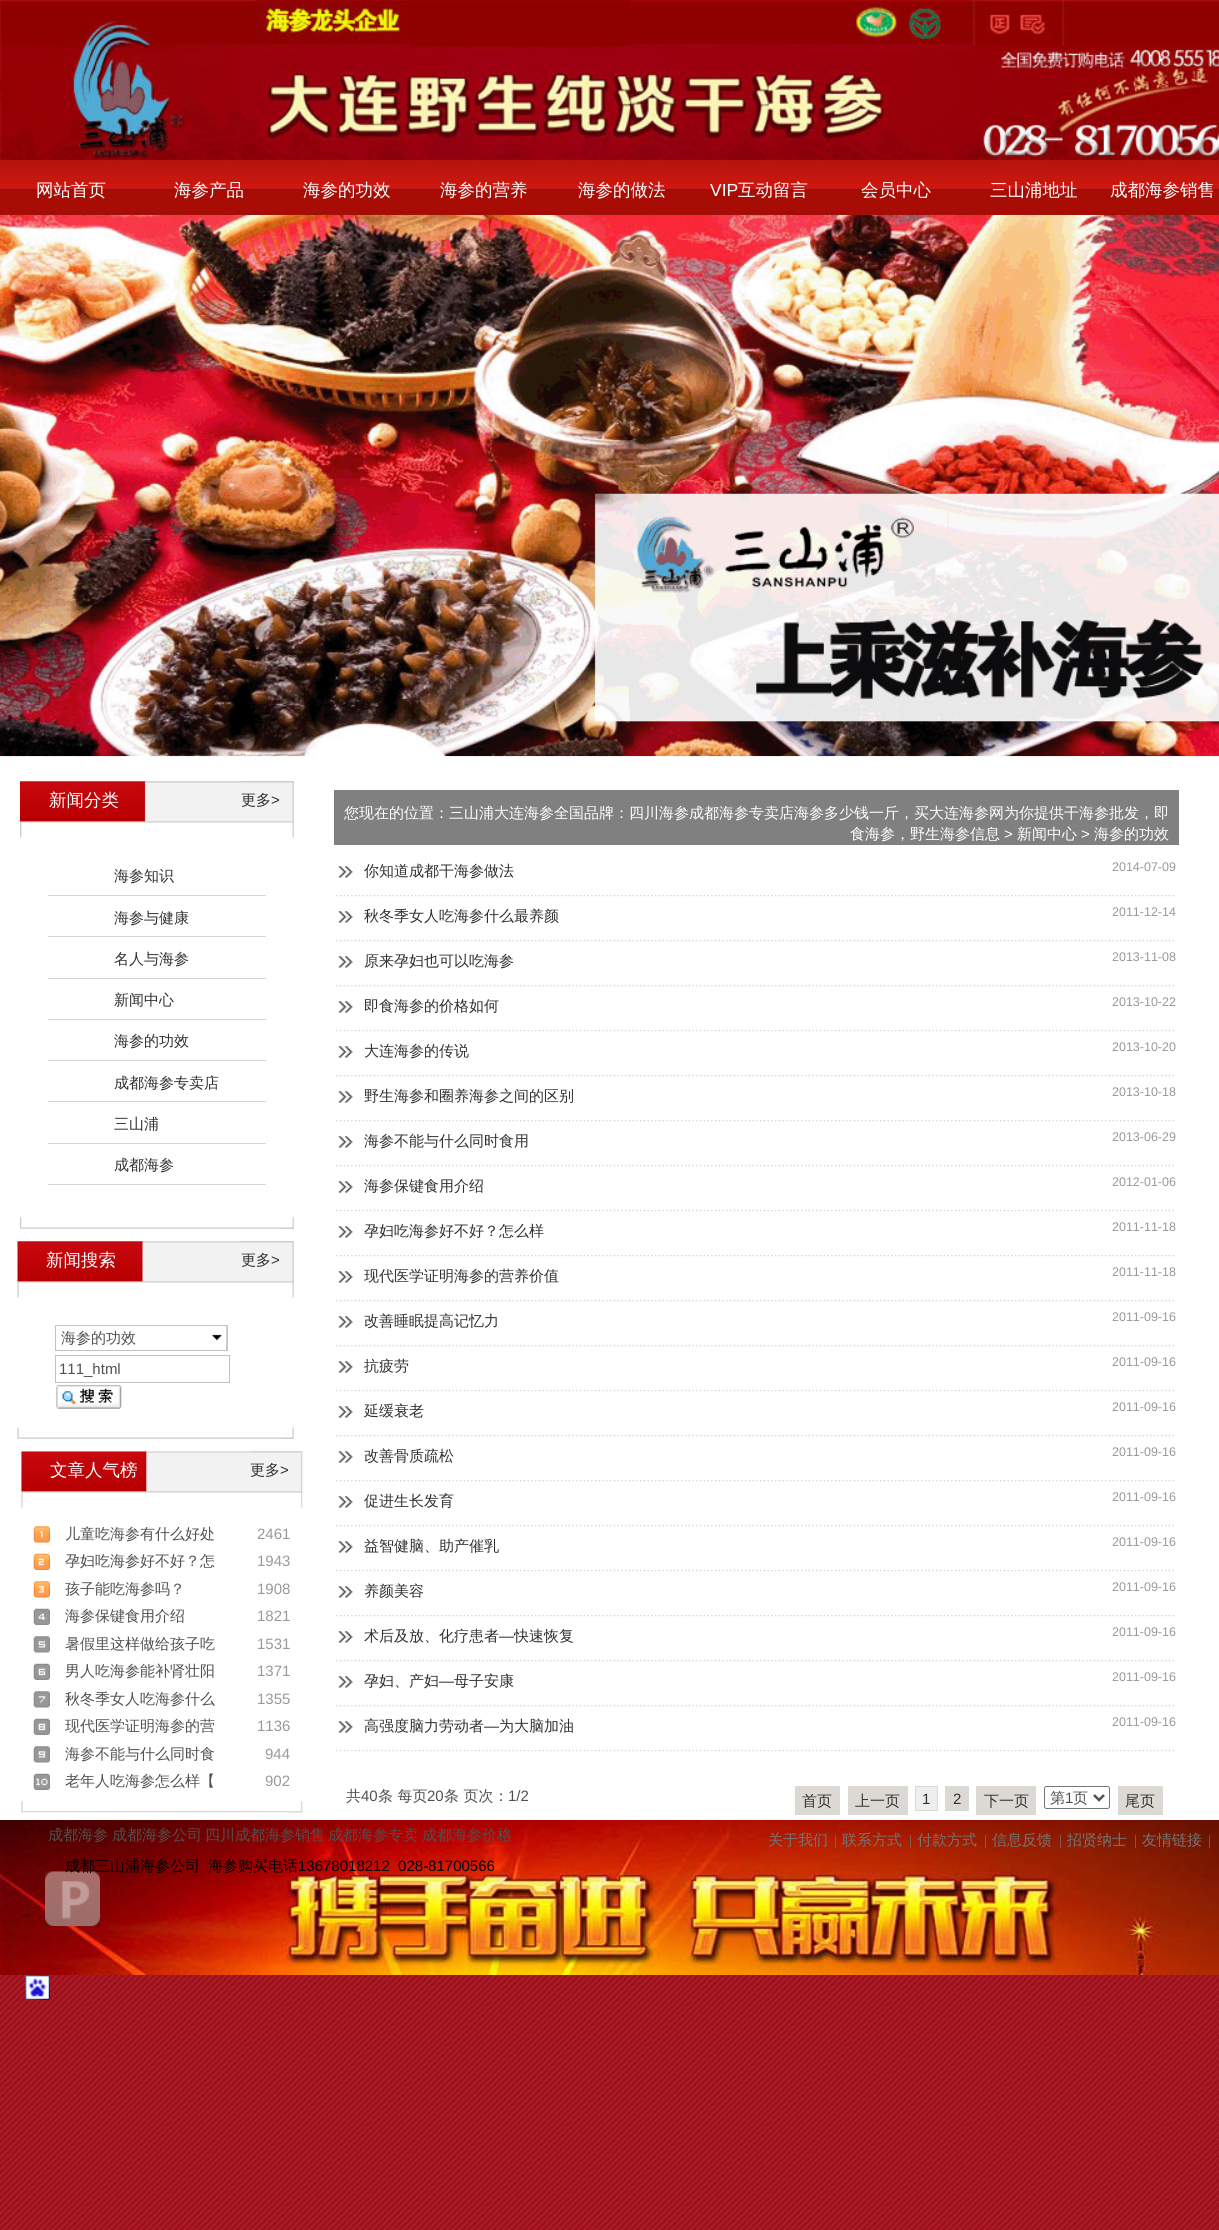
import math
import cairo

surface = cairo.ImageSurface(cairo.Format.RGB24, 1219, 2230)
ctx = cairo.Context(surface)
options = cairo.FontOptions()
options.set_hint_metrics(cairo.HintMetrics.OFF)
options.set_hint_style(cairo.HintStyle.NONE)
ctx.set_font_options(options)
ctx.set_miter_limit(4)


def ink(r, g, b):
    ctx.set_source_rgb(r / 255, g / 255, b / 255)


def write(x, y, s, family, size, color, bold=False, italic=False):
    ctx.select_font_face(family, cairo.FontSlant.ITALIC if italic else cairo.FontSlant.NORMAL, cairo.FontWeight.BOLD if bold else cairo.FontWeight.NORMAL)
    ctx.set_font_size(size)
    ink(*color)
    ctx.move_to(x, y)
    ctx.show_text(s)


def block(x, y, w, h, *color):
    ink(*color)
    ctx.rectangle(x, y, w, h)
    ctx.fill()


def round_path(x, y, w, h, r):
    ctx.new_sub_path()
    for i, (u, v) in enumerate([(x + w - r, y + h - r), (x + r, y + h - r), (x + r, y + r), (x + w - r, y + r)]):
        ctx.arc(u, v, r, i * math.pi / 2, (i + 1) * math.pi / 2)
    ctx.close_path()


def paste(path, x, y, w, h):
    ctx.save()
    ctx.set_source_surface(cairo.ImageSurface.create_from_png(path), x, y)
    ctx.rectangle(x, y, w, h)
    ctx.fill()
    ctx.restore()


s1 = dict(family="WenQuanYi Zen Hei Medium", size=17.5, color=(255, 255, 255))
s2 = dict(family="Liberation Sans", size=17.5, color=(255, 255, 255))
s3 = dict(family="WenQuanYi Zen Hei Medium", size=15, color=(48, 48, 48))
s4 = dict(family="Liberation Sans", size=15, color=(48, 48, 48))
s5 = dict(family="WenQuanYi Zen Hei Medium", size=15, color=(255, 255, 255))
s6 = dict(family="Liberation Sans", size=15, color=(255, 255, 255))
s7 = dict(family="WenQuanYi Zen Hei Medium", size=15, color=(80, 80, 80))
s8 = dict(family="Liberation Sans", size=15, color=(80, 80, 80))
s9 = dict(family="Liberation Sans", size=12.5, color=(153, 153, 153))
s10 = dict(family="Liberation Sans", size=15, color=(153, 153, 153))
s11 = dict(family="WenQuanYi Zen Hei Medium", size=15, color=(0, 0, 0))
s12 = dict(family="Liberation Sans", size=15, color=(0, 0, 0))
s13 = dict(family="WenQuanYi Zen Hei Medium", size=15, color=(116, 116, 116))
s14 = dict(family="Liberation Serif", size=14, color=(116, 116, 116))

ink(255, 255, 255)
ctx.paint()
paste("pic1.png", 0, 1975, 1219, 255)
paste("pic2.png", 0, 0, 1219, 215)
write(36, 196, "网站首页", **s1)
write(174, 196, "海参产品", **s1)
write(303, 196, "海参的功效", **s1)
write(440, 196, "海参的营养", **s1)
write(578, 196, "海参的做法", **s1)
write(710, 196, "VIP", **s2)
write(738, 196, "互动留言", **s1)
write(861, 196, "会员中心", **s1)
write(990, 196, "三山浦地址", **s1)
write(1110, 196, "成都海参销售", **s1)
paste("pic3.png", 0, 215, 1219, 542)
paste("pic4.png", 20, 781, 274, 57)
write(49, 806, "新闻分类", **s1)
paste("pic5.png", 241, 781, 53, 57)
write(241, 805, "更多", **s3)
write(271, 805, ">", **s4)
block(48, 895, 218, 1, 212, 212, 212)
write(114, 881, "海参知识", **s3)
block(48, 936, 218, 1, 212, 212, 212)
write(114, 923, "海参与健康", **s3)
block(48, 978, 218, 1, 212, 212, 212)
write(114, 964, "名人与海参", **s3)
block(48, 1019, 218, 1, 212, 212, 212)
write(114, 1005, "新闻中心", **s3)
block(48, 1060, 218, 1, 212, 212, 212)
write(114, 1046, "海参的功效", **s3)
block(48, 1101, 218, 1, 212, 212, 212)
write(114, 1088, "成都海参专卖店", **s3)
block(48, 1143, 218, 1, 212, 212, 212)
write(114, 1129, "三山浦", **s3)
block(48, 1184, 218, 1, 212, 212, 212)
write(114, 1170, "成都海参", **s3)
paste("pic6.png", 20, 1217, 274, 12)
paste("pic7.png", 281, 1217, 13, 12)
block(334, 790, 845, 55, 128, 128, 128)
write(344, 818, "您现在的位置：三山浦大连海参全国品牌：四川海参成都海参专卖店海参多少钱一斤，买大连海参网为你提供干海参批发，即", **s5)
write(850, 839, "食海参，野生海参信息", **s5)
write(1004, 839, ">", **s6)
write(1017, 839, "新闻中心", **s5)
write(1081, 839, ">", **s6)
write(1094, 839, "海参的功效", **s5)
paste("pic8.png", 17, 1241, 277, 57)
write(46, 1266, "新闻搜索", **s1)
paste("pic9.png", 241, 1241, 53, 57)
write(241, 1265, "更多", **s3)
write(271, 1265, ">", **s4)
block(55, 1325, 173, 26, 190, 195, 202)
block(56, 1326, 170, 24, 255, 255, 255)
write(61, 1343, "海参的功效", **s7)
paste("pic10.png", 212, 1326, 15, 21)
ctx.rectangle(55.5, 1355.5, 174, 27)
ink(190, 195, 202)
ctx.set_line_width(1)
ctx.stroke()
write(59, 1374, "111_html", **s8)
paste("pic11.png", 56, 1384, 66, 25)
paste("pic12.png", 17, 1427, 277, 12)
paste("pic7.png", 281, 1427, 13, 12)
paste("pic13.png", 336, 866, 838, 31)
write(364, 876, "你知道成都干海参做法", **s3)
write(1112, 871, "2014-07-09", **s9)
paste("pic13.png", 336, 911, 838, 31)
write(364, 921, "秋冬季女人吃海参什么最养颜", **s3)
write(1112, 916, "2011-12-14", **s9)
paste("pic13.png", 336, 956, 838, 31)
write(364, 966, "原来孕妇也可以吃海参", **s3)
write(1112, 961, "2013-11-08", **s9)
paste("pic13.png", 336, 1001, 838, 31)
write(364, 1011, "即食海参的价格如何", **s3)
write(1112, 1006, "2013-10-22", **s9)
paste("pic13.png", 336, 1046, 838, 31)
write(364, 1056, "大连海参的传说", **s3)
write(1112, 1051, "2013-10-20", **s9)
paste("pic13.png", 336, 1091, 838, 31)
write(364, 1101, "野生海参和圈养海参之间的区别", **s3)
write(1112, 1096, "2013-10-18", **s9)
paste("pic13.png", 336, 1136, 838, 31)
write(364, 1146, "海参不能与什么同时食用", **s3)
write(1112, 1141, "2013-06-29", **s9)
paste("pic14.png", 336, 1181, 838, 31)
write(364, 1191, "海参保键食用介绍", **s3)
write(1112, 1186, "2012-01-06", **s9)
paste("pic13.png", 336, 1226, 838, 31)
write(364, 1236, "孕妇吃海参好不好？怎么样", **s3)
write(1112, 1231, "2011-11-18", **s9)
paste("pic13.png", 336, 1271, 838, 31)
write(364, 1281, "现代医学证明海参的营养价值", **s3)
write(1112, 1276, "2011-11-18", **s9)
paste("pic13.png", 336, 1316, 838, 31)
write(364, 1326, "改善睡眠提高记忆力", **s3)
write(1112, 1321, "2011-09-16", **s9)
paste("pic13.png", 336, 1361, 838, 31)
write(364, 1371, "抗疲劳", **s3)
write(1112, 1366, "2011-09-16", **s9)
paste("pic13.png", 336, 1406, 838, 31)
write(364, 1416, "延缓衰老", **s3)
write(1112, 1411, "2011-09-16", **s9)
paste("pic13.png", 336, 1451, 838, 31)
write(364, 1461, "改善骨质疏松", **s3)
write(1112, 1456, "2011-09-16", **s9)
paste("pic13.png", 336, 1496, 838, 31)
write(364, 1506, "促进生长发育", **s3)
write(1112, 1501, "2011-09-16", **s9)
paste("pic13.png", 336, 1541, 838, 31)
write(364, 1551, "益智健脑、助产催乳", **s3)
write(1112, 1546, "2011-09-16", **s9)
paste("pic13.png", 336, 1586, 838, 31)
write(364, 1596, "养颜美容", **s3)
write(1112, 1591, "2011-09-16", **s9)
paste("pic13.png", 336, 1631, 838, 31)
write(364, 1641, "术后及放、化疗患者", **s3)
write(499, 1641, "—", **s4)
write(514, 1641, "快速恢复", **s3)
write(1112, 1636, "2011-09-16", **s9)
paste("pic13.png", 336, 1676, 838, 31)
write(364, 1686, "孕妇、产妇", **s3)
write(439, 1686, "—", **s4)
write(454, 1686, "母子安康", **s3)
write(1112, 1681, "2011-09-16", **s9)
paste("pic13.png", 336, 1721, 838, 31)
write(364, 1731, "高强度脑力劳动者", **s3)
write(484, 1731, "—", **s4)
write(499, 1731, "为大脑加油", **s3)
write(1112, 1726, "2011-09-16", **s9)
write(346, 1801, "共", **s7)
write(361, 1801, "40", **s8)
write(378, 1801, "条 每页", **s7)
write(427, 1801, "20", **s8)
write(444, 1801, "条 页次：", **s7)
write(508, 1801, "1/2", **s8)
block(795, 1786, 45, 29, 220, 217, 212)
write(802, 1806, "首页", **s3)
block(848, 1786, 60, 29, 220, 217, 212)
write(855, 1806, "上一页", **s3)
ink(238, 238, 238)
ctx.rectangle(915.5, 1786.5, 22, 24)
ctx.fill_preserve()
ink(220, 217, 212)
ctx.stroke()
write(922, 1804, "1", **s4)
block(945, 1786, 24, 25, 220, 217, 212)
write(953, 1804, "2", **s4)
block(976, 1786, 60, 29, 220, 217, 212)
write(984, 1806, "下一页", **s3)
round_path(1044.5, 1786.5, 65, 22, 2)
ink(118, 118, 118)
ctx.stroke()
ctx.new_path()
ctx.move_to(1094, 1795)
ctx.line_to(1099, 1800)
ctx.line_to(1104, 1795)
ink(80, 80, 80)
ctx.set_line_width(2.5)
ctx.stroke()
write(1050, 1803, "第", **s7)
write(1065, 1803, "1", **s8)
write(1073, 1803, "页", **s7)
block(1118, 1786, 45, 29, 220, 217, 212)
write(1125, 1806, "尾页", **s3)
paste("pic15.png", 21, 1451, 282, 57)
write(50, 1476, "文章人气榜", **s1)
paste("pic16.png", 250, 1451, 53, 57)
write(250, 1475, "更多", **s3)
write(280, 1475, ">", **s4)
paste("pic17.png", 33, 1526, 17, 17)
write(65, 1539, "儿童吃海参有什么好处", **s7)
write(257, 1539, "2461", **s10)
paste("pic18.png", 33, 1553, 17, 17)
write(65, 1566, "孕妇吃海参好不好？怎", **s7)
write(257, 1566, "1943", **s10)
paste("pic19.png", 33, 1581, 17, 17)
write(65, 1594, "孩子能吃海参吗？", **s7)
write(257, 1594, "1908", **s10)
paste("pic20.png", 33, 1608, 17, 17)
write(65, 1621, "海参保键食用介绍", **s7)
write(257, 1621, "1821", **s10)
paste("pic21.png", 33, 1636, 17, 17)
write(65, 1649, "暑假里这样做给孩子吃", **s7)
write(257, 1649, "1531", **s10)
paste("pic22.png", 33, 1663, 17, 17)
write(65, 1676, "男人吃海参能补肾壮阳", **s7)
write(257, 1676, "1371", **s10)
paste("pic23.png", 33, 1691, 17, 17)
write(65, 1704, "秋冬季女人吃海参什么", **s7)
write(257, 1704, "1355", **s10)
paste("pic24.png", 33, 1718, 17, 17)
write(65, 1731, "现代医学证明海参的营", **s7)
write(257, 1731, "1136", **s10)
paste("pic25.png", 33, 1746, 17, 17)
write(65, 1759, "海参不能与什么同时食", **s7)
write(265, 1759, "944", **s10)
paste("pic26.png", 33, 1773, 17, 17)
write(65, 1786, "老年人吃海参怎么样【", **s7)
write(265, 1786, "902", **s10)
paste("pic27.png", 21, 1801, 282, 12)
paste("pic28.png", 290, 1801, 13, 12)
paste("pic29.png", 0, 1820, 1219, 155)
write(48, 1840, "成都海参", **s7)
write(112, 1840, "成都海参公司", **s7)
write(205, 1840, "四川成都海参销售", **s7)
write(328, 1840, "成都海参专卖", **s7)
write(422, 1840, "成都海参价格", **s7)
paste("pic30.png", 45, 1871, 55, 56)
write(65, 1871, "成都三山浦海参公司", **s11)
write(208, 1871, "海参购买电话", **s11)
write(298, 1871, "13678018212  028-81700566", **s12)
write(768, 1845, "关于我们", **s13)
write(834, 1845, "|", **s14)
write(842, 1845, "联系方式", **s13)
write(909, 1845, "|", **s14)
write(917, 1845, "付款方式", **s13)
write(984, 1845, "|", **s14)
write(992, 1845, "信息反馈", **s13)
write(1059, 1845, "|", **s14)
write(1067, 1845, "招贤纳士", **s13)
write(1134, 1845, "|", **s14)
write(1142, 1845, "友情链接", **s13)
write(1208, 1845, "|", **s14)
paste("pic31.png", 25, 1975, 25, 25)
surface.write_to_png("screenshot.png")
